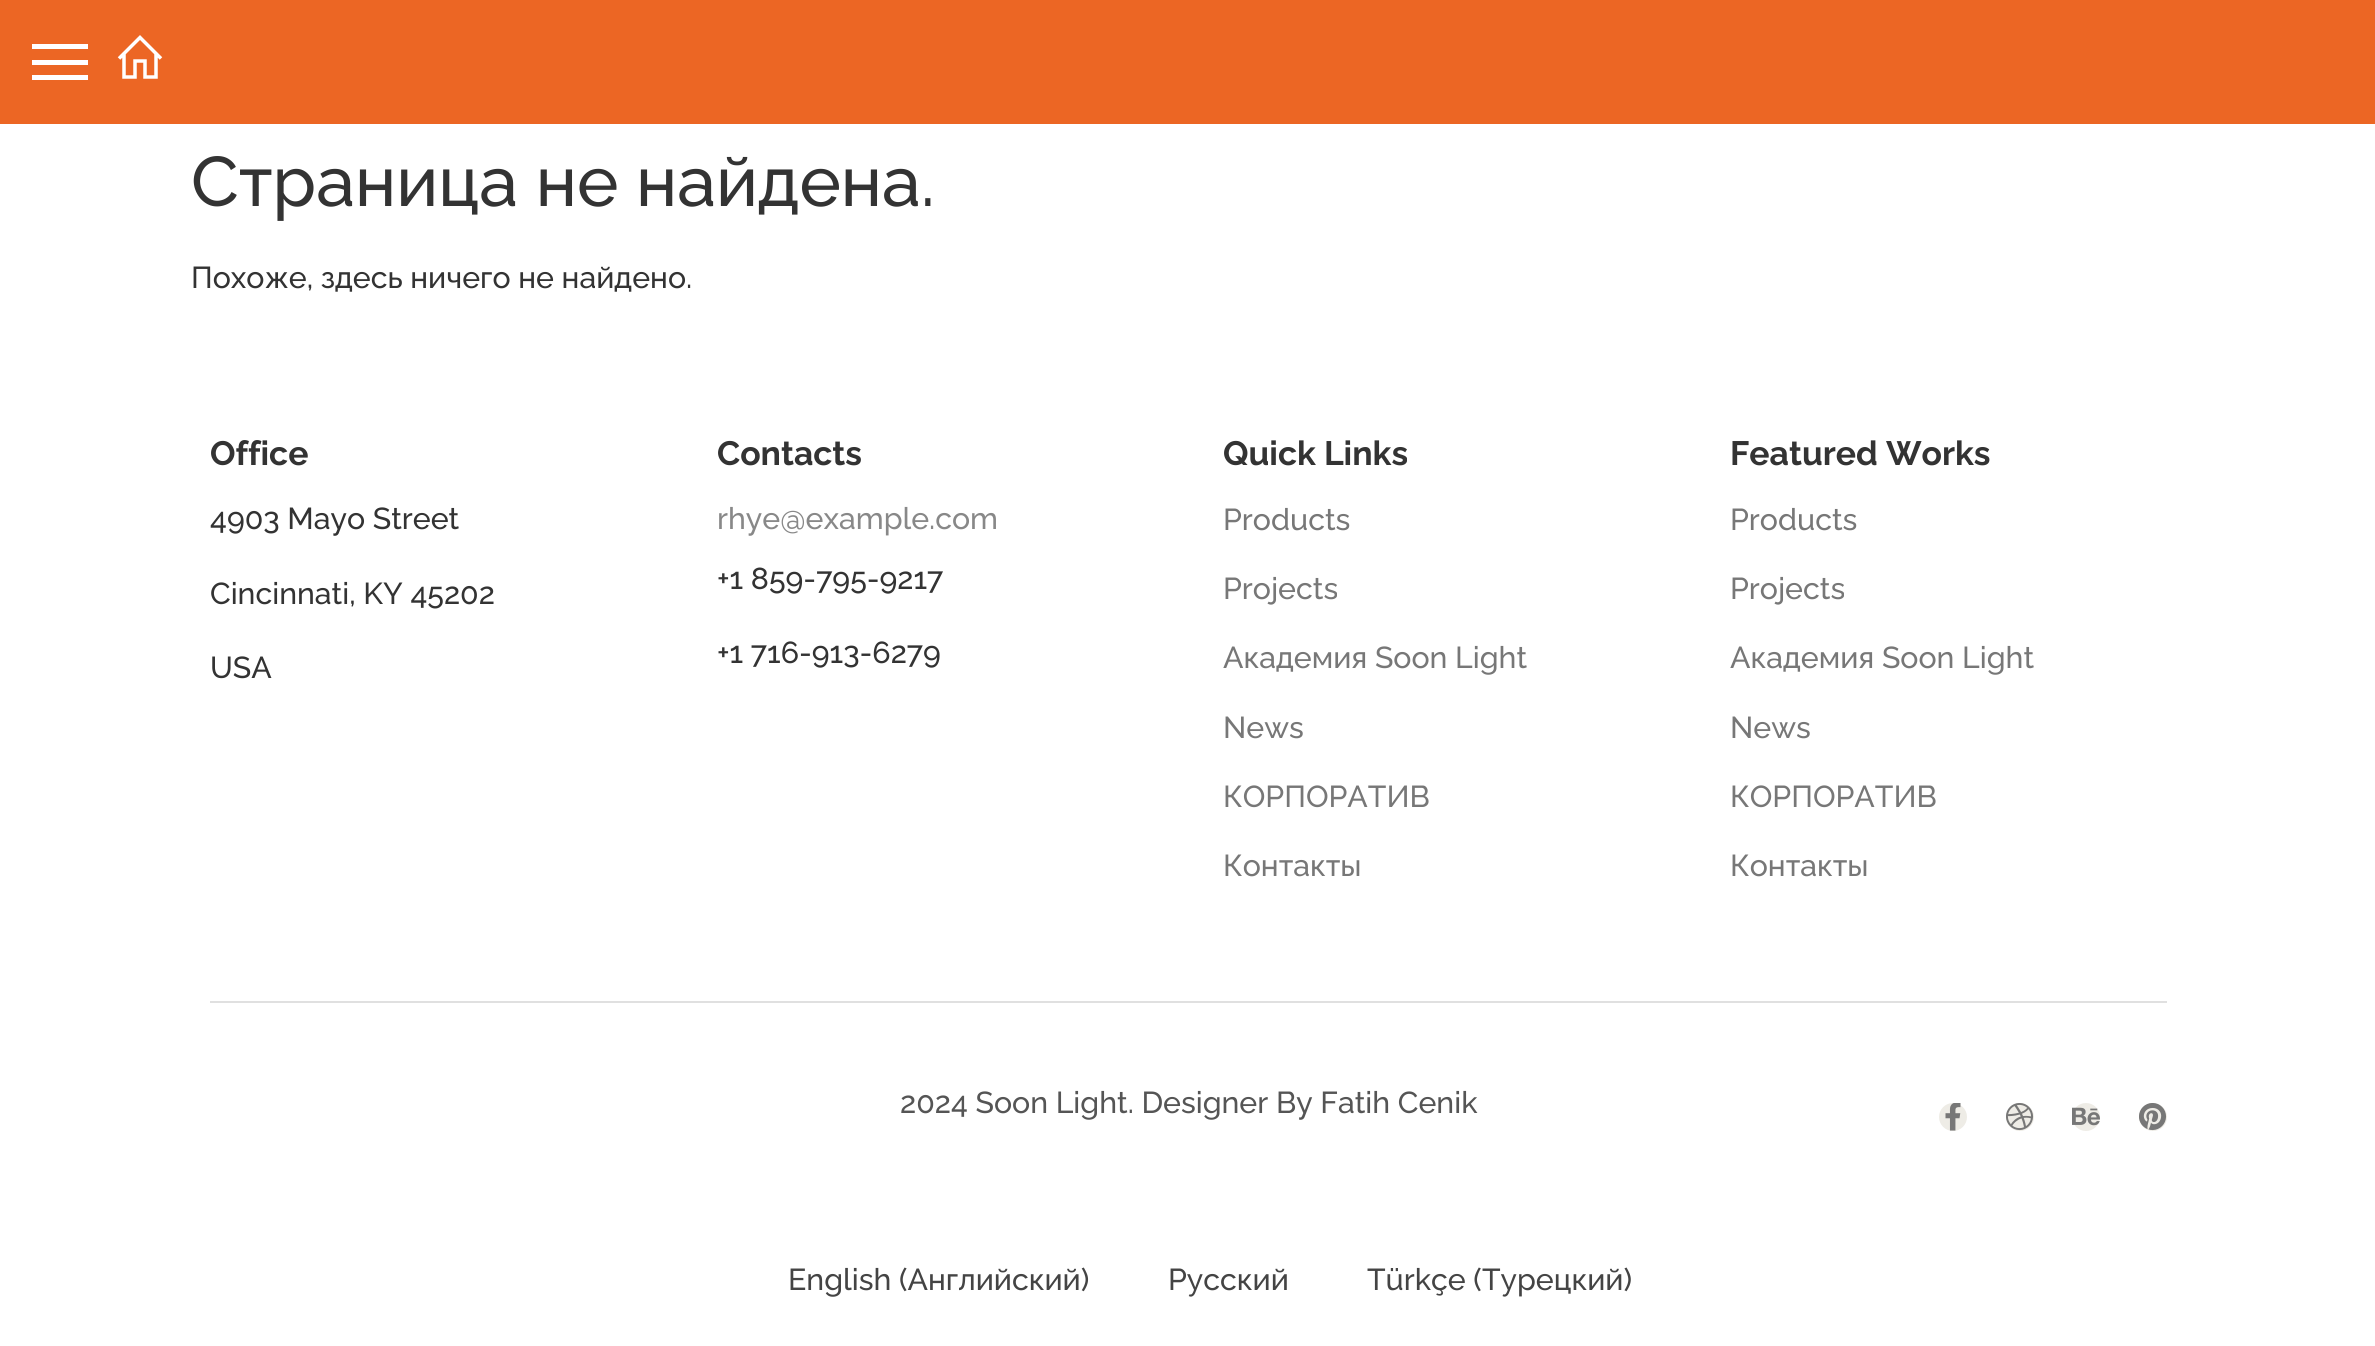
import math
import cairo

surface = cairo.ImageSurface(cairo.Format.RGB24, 2375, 1346)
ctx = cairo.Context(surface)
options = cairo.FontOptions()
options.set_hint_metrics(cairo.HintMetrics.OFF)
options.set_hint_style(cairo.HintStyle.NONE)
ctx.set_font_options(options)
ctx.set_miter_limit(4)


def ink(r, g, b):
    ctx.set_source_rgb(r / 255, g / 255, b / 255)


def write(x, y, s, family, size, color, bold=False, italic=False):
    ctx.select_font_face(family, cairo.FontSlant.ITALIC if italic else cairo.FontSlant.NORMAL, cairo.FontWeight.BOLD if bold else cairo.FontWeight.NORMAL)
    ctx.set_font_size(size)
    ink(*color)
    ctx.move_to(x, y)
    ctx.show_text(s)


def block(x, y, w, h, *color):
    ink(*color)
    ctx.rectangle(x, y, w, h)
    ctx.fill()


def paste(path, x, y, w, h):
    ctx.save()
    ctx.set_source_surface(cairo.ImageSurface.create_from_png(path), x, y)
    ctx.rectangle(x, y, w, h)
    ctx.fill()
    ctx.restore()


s1 = dict(family="Raleway Medium", size=70, color=(51, 51, 51))
s2 = dict(family="Raleway Medium", size=30.25, color=(51, 51, 51))
s3 = dict(family="Raleway", size=33.75, color=(51, 51, 51), bold=True)
s4 = dict(family="Raleway Medium", size=30.25, color=(136, 136, 136))
s5 = dict(family="Raleway Medium", size=30.25, color=(119, 119, 119))
s6 = dict(family="Raleway Medium", size=30.25, color=(85, 85, 85))
s7 = dict(family="Raleway Medium", size=30.25, color=(68, 68, 68))

ink(255, 255, 255)
ctx.paint()
block(0, 0, 2375, 124, 236, 102, 36)
block(32, 44, 56, 5, 255, 255, 255)
block(32, 60, 56, 5, 255, 255, 255)
block(32, 75, 56, 5, 255, 255, 255)
ctx.new_path()
ctx.move_to(119, 58.5)
ctx.line_to(140, 37.5)
ctx.line_to(161, 58.5)
ctx.move_to(124, 53)
ctx.line_to(124, 77)
ctx.line_to(135, 77)
ctx.line_to(135, 61)
ctx.line_to(145, 61)
ctx.line_to(145, 77)
ctx.line_to(156, 77)
ctx.line_to(156, 52.5)
ctx.set_line_width(3.5)
ctx.stroke()
write(191, 206, "Страница не найдена.", **s1)
write(191, 288, "Похоже, здесь ничего не найдено.", **s2)
write(210, 465, "Office", **s3)
write(210, 529, "4903 Mayo Street", **s2)
write(210, 604, "Cincinnati, KY 45202", **s2)
write(210, 678, "USA", **s2)
write(717, 465, "Contacts", **s3)
write(717, 529, "rhye@example.com", **s4)
write(717, 589, "+1 859-795-9217", **s2)
write(717, 663, "+1 716-913-6279", **s2)
write(1223, 465, "Quick Links", **s3)
write(1223, 530, "Products", **s5)
write(1223, 599, "Projects", **s5)
write(1223, 668, "Академия Soon Light", **s5)
write(1223, 738, "News", **s5)
write(1223, 807, "КОРПОРАТИВ", **s5)
write(1223, 876, "Контакты", **s5)
write(1730, 465, "Featured Works", **s3)
write(1730, 530, "Products", **s5)
write(1730, 599, "Projects", **s5)
write(1730, 668, "Академия Soon Light", **s5)
write(1730, 738, "News", **s5)
write(1730, 807, "КОРПОРАТИВ", **s5)
write(1730, 876, "Контакты", **s5)
block(210, 1001, 1957, 2, 224, 224, 224)
write(900, 1113, "2024 Soon Light. Designer By Fatih Cenik", **s6)
ink(238, 236, 230)
ctx.new_path()
ctx.arc(1953, 1117, 14, 0, 2 * math.pi)
ctx.fill()
paste("pic1.png", 1945, 1103, 16, 28)
ctx.arc(2020, 1117, 14, 0, 2 * math.pi)
ctx.fill()
paste("pic2.png", 2006, 1103, 28, 28)
ctx.arc(2086, 1117, 14, 0, 2 * math.pi)
ctx.fill()
paste("pic3.png", 2072, 1107, 28, 19)
ctx.arc(2153, 1117, 14, 0, 2 * math.pi)
ctx.fill()
paste("pic4.png", 2139, 1103, 28, 28)
write(788, 1290, "English (Английский)", **s7)
write(1168, 1290, "Русский", **s7)
write(1367, 1290, "Türkçe (Турецкий)", **s7)
surface.write_to_png("screenshot.png")
